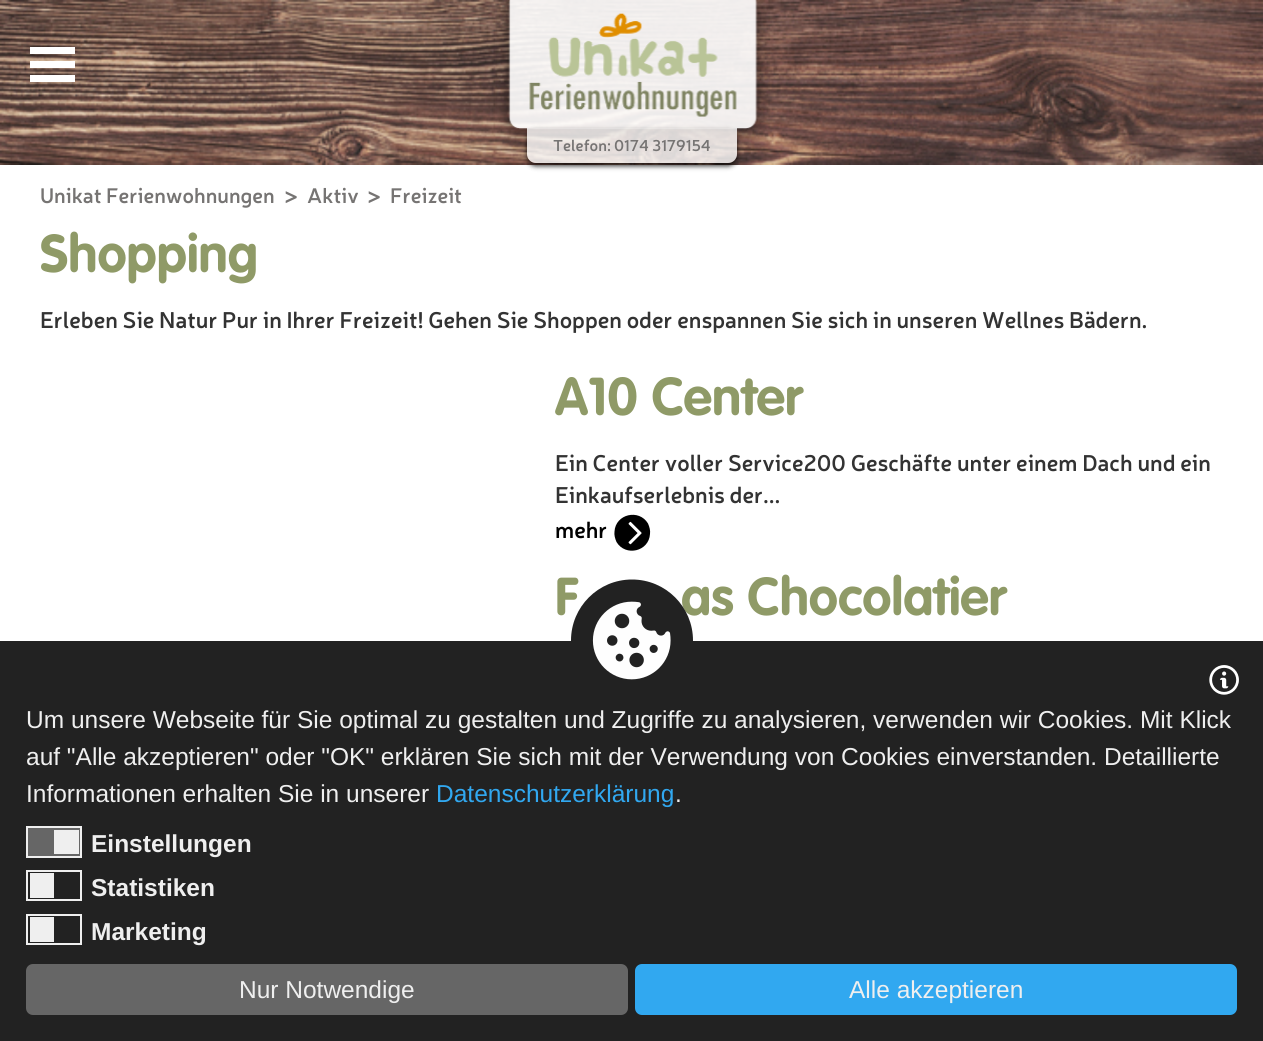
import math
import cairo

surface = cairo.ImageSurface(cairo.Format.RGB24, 1263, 1041)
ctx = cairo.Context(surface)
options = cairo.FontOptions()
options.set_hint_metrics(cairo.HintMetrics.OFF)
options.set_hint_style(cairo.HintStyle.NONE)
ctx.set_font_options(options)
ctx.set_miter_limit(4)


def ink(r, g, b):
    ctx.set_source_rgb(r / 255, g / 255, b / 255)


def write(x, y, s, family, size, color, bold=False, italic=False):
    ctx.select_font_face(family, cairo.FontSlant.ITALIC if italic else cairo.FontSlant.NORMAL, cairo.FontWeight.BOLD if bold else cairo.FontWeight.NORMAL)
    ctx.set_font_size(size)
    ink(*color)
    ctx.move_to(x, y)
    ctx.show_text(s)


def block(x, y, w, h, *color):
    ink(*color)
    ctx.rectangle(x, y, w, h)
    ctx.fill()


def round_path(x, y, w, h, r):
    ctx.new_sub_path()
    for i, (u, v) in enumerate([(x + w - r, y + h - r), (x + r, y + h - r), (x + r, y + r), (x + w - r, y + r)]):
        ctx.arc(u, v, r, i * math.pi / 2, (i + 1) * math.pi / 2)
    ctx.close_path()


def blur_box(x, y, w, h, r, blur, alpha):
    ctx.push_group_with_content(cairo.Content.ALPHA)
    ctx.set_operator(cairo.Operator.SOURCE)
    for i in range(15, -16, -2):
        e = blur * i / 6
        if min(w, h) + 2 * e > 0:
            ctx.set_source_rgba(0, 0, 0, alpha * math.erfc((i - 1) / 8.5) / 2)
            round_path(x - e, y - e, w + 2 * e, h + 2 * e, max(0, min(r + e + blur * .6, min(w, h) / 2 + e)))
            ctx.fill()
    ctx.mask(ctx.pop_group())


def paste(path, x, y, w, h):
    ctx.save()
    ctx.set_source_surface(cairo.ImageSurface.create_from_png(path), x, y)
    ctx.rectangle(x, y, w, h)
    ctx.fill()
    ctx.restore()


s1 = dict(family="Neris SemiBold", size=15.75, color=(118, 116, 115))
s2 = dict(family="Neris SemiBold", size=21, color=(118, 116, 115))
s3 = dict(family="Neris SemiBold", size=22.75, color=(118, 116, 115))
s4 = dict(family="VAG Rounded", size=52.5, color=(143, 154, 103), bold=True)
s5 = dict(family="Neris SemiBold", size=22.75, color=(51, 51, 51))
s6 = dict(family="Neris SemiBold", size=22.75, color=(0, 0, 0))
s7 = dict(family="Liberation Sans", size=24.5, color=(239, 239, 239))
s8 = dict(family="Liberation Sans", size=24.5, color=(49, 168, 240))
s9 = dict(family="Liberation Sans", size=24.5, color=(239, 239, 239), bold=True)

ink(255, 255, 255)
ctx.paint()
paste("pic1.png", 0, 0, 1263, 165)
block(30, 61, 45, 7, 255, 255, 255)
block(30, 47, 45, 7, 255, 255, 255)
block(30, 75, 45, 7, 255, 255, 255)
paste("pic2.png", 496, 0, 274, 145)
ctx.save()
ctx.set_fill_rule(cairo.FillRule.EVEN_ODD)
ctx.new_path()
ctx.move_to(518, 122)
ctx.line_to(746, 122)
ctx.line_to(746, 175)
ctx.line_to(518, 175)
ctx.close_path()
ctx.move_to(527, 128)
ctx.line_to(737, 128)
ctx.line_to(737, 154)
ctx.curve_to(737, 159, 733, 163, 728, 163)
ctx.line_to(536, 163)
ctx.curve_to(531, 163, 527, 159, 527, 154)
ctx.close_path()
ctx.clip()
ink(0, 0, 0)
blur_box(527, 131, 210, 35, 9, 2.5, 0.8)
ctx.restore()
ctx.set_source_rgba(1, 1, 1, 0.8)
ctx.new_path()
ctx.move_to(527, 128)
ctx.line_to(737, 128)
ctx.line_to(737, 154)
ctx.curve_to(737, 159, 733, 163, 728, 163)
ctx.line_to(536, 163)
ctx.curve_to(531, 163, 527, 159, 527, 154)
ctx.close_path()
ctx.fill()
write(553, 151, "Telefon: 0174 3179154", **s1)
write(40, 203, "Unikat Ferienwohnungen", **s2)
write(284, 203, ">", **s3)
write(307, 203, "Aktiv", **s2)
write(367, 203, ">", **s3)
write(390, 203, "Freizeit", **s2)
write(40, 272, "Shopping", **s4)
write(40, 328, "Erleben Sie Natur Pur in Ihrer Freizeit! Gehen Sie Shoppen oder enspannen Sie sich in unseren Wellnes Bädern.", **s5)
write(555, 415, "A10 Center", **s4)
write(555, 471, "Ein Center voller Service200 Geschäfte unter einem Dach und ein", **s5)
write(555, 503, "Einkaufserlebnis der...", **s5)
write(555, 538, "mehr", **s6)
ctx.new_path()
ctx.move_to(648, 523.5)
ctx.curve_to(649.5, 527, 650.5, 530.5, 650, 534)
ctx.curve_to(649, 551.5, 625.5, 557, 616.5, 542)
ctx.curve_to(615, 538.5, 614, 535, 614.5, 531.5)
ctx.curve_to(615.5, 514, 639, 508.5, 648, 523.5)
ctx.close_path()
ctx.fill()
paste("pic3.png", 628, 521, 14, 24)
write(555, 615, "F", **s4)
write(681, 615, "as Chocolatier", **s4)
block(0, 641, 1263, 400, 34, 34, 34)
paste("pic4.png", 571, 579, 122, 101)
paste("pic5.png", 1209, 665, 30, 30)
write(26, 728, "Um unsere Webseite für Sie optimal zu gestalten und Zugriffe zu analysieren, verwenden wir Cookies. Mit Klick", **s7)
write(26, 765, "auf \"Alle akzeptieren\" oder \"OK\" erklären Sie sich mit der Verwendung von Cookies einverstanden. Detaillierte", **s7)
write(26, 802, "Informationen erhalten Sie in unserer", **s7)
write(436, 802, "Datenschutzerklärung", **s8)
write(675, 802, ".", **s7)
ink(102, 102, 102)
ctx.rectangle(27, 827, 54, 30)
ctx.fill_preserve()
ink(239, 239, 239)
ctx.stroke()
block(54, 830, 25, 24, 239, 239, 239)
write(91, 852, "Einstellungen", **s9)
ctx.rectangle(27, 871, 54, 29)
ctx.stroke()
block(30, 873, 24, 25, 239, 239, 239)
write(91, 896, "Statistiken", **s9)
ctx.rectangle(27, 915, 54, 29)
ctx.stroke()
block(30, 917, 24, 25, 239, 239, 239)
write(91, 940, "Marketing", **s9)
ink(102, 102, 102)
round_path(26, 964, 602, 51, 7)
ctx.fill()
write(239, 998, "Nur Notwendige", **s7)
ink(49, 168, 240)
round_path(635, 964, 602, 51, 7)
ctx.fill()
write(849, 998, "Alle akzeptieren", **s7)
surface.write_to_png("screenshot.png")
